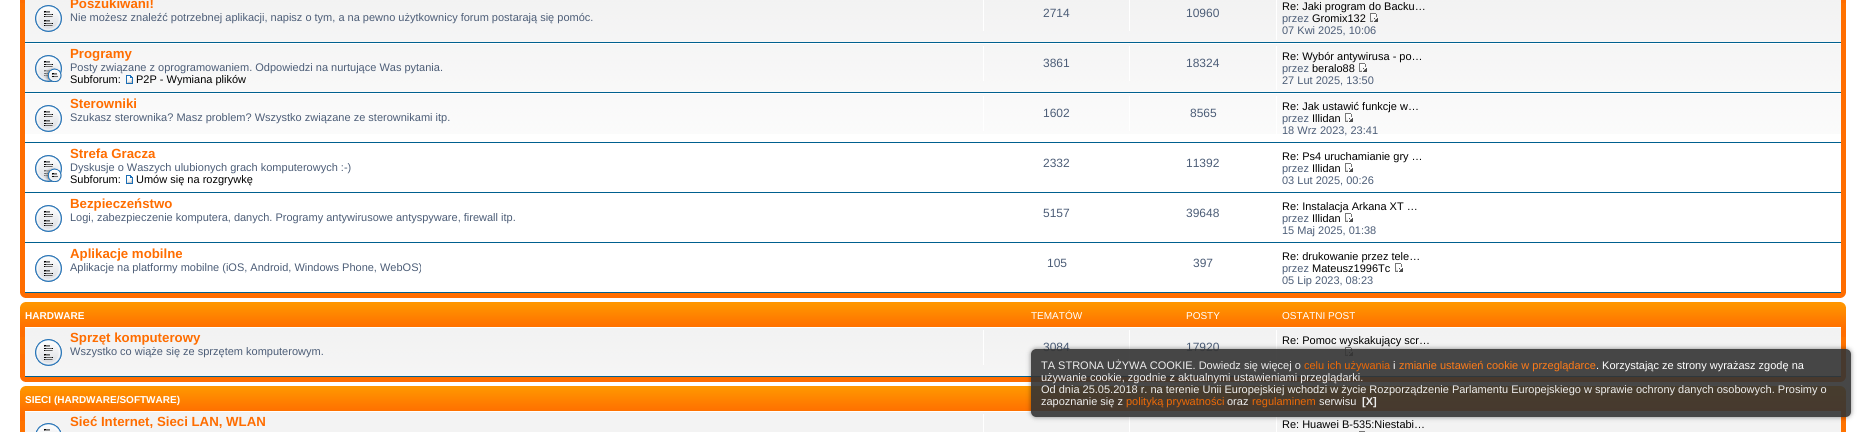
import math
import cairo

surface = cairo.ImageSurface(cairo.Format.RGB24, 1866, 432)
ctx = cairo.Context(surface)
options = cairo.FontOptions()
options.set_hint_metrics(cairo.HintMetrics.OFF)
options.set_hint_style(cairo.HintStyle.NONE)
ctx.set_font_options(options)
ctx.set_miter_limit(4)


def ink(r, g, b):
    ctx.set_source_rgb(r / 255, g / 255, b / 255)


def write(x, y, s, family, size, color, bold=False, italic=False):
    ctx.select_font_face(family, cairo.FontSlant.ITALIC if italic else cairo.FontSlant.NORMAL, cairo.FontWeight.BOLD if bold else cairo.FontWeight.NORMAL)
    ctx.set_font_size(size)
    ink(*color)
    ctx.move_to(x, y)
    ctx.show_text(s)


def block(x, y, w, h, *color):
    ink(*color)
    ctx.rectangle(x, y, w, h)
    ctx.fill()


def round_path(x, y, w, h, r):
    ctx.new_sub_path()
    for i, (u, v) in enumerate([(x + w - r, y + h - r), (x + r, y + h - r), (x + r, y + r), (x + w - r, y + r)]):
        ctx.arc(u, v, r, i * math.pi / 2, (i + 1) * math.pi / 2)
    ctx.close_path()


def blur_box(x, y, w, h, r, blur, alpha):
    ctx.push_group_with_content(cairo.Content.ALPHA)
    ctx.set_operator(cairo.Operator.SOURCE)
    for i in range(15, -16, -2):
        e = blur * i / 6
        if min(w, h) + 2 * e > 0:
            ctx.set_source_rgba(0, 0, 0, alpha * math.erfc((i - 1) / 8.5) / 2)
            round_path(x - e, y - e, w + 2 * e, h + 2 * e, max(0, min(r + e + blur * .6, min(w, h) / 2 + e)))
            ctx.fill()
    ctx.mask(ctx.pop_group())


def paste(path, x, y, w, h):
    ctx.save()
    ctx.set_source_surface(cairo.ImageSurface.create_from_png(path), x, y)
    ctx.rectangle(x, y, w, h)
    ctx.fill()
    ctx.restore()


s1 = dict(family="Liberation Sans", size=13.25, color=(255, 109, 0), bold=True)
s2 = dict(family="Liberation Sans", size=11, color=(76, 93, 119))
s3 = dict(family="Liberation Sans", size=12, color=(76, 93, 119))
s4 = dict(family="Liberation Sans", size=11, color=(0, 0, 0))
s5 = dict(family="Liberation Sans", size=10, color=(255, 255, 255), bold=True)
s6 = dict(family="Liberation Sans", size=10, color=(255, 255, 255))
s7 = dict(family="Liberation Sans", size=11, color=(237, 237, 237))
s8 = dict(family="Liberation Sans", size=11, color=(236, 105, 7))
s9 = dict(family="Liberation Sans", size=11, color=(255, 255, 255))
s10 = dict(family="Liberation Sans", size=11, color=(254, 123, 24))
s11 = dict(family="Liberation Sans", size=11, color=(237, 237, 237), bold=True)

ink(255, 255, 255)
ctx.paint()
block(20, 0, 1826, 298, 255, 109, 0)
block(20, 3, 1826, 17, 255, 114, 0)
block(25, 134, 1816, 158, 255, 255, 255)
paste("pic1.png", 25, 0, 1816, 134)
block(25, 42, 1816, 1, 0, 96, 143)
paste("pic2.png", 35, 5, 27, 27)
write(70, 8, "Poszukiwani!", **s1)
write(70, 21, "Nie możesz znaleźć potrzebnej aplikacji, napisz o tym, a na pewno użytkownicy forum postarają się pomóc.", **s2)
block(983, 0, 1, 31, 255, 255, 255)
write(1043, 17, "2714", **s3)
block(1129, 0, 1, 31, 255, 255, 255)
write(1186, 17, "10960", **s3)
block(1276, 0, 1, 40, 255, 255, 255)
write(1282, 10, "Re: Jaki program do Backu…", **s4)
write(1282, 22, "przez", **s2)
write(1312, 22, "Gromix132", **s4)
paste("pic3.png", 1370, 13, 8, 9)
write(1282, 34, "07 Kwi 2025, 10:06", **s2)
block(25, 43, 1816, 1, 255, 255, 255)
block(25, 92, 1816, 1, 0, 96, 143)
paste("pic4.png", 35, 55, 27, 27)
write(70, 58, "Programy", **s1)
write(70, 71, "Posty związane z oprogramowaniem. Odpowiedzi na nurtujące Was pytania.", **s2)
write(70, 83, "Subforum:", **s4)
paste("pic5.png", 126, 75, 7, 9)
write(136, 83, "P2P - Wymiana plików", **s4)
block(983, 46, 1, 35, 255, 255, 255)
write(1043, 67, "3861", **s3)
block(1129, 46, 1, 35, 255, 255, 255)
write(1186, 67, "18324", **s3)
block(1276, 46, 1, 44, 255, 255, 255)
write(1282, 60, "Re: Wybór antywirusa - po…", **s4)
write(1282, 72, "przez", **s2)
write(1312, 72, "beralo88", **s4)
paste("pic6.png", 1359, 63, 8, 9)
write(1282, 84, "27 Lut 2025, 13:50", **s2)
block(25, 93, 1816, 1, 255, 255, 255)
block(25, 142, 1816, 1, 0, 96, 143)
paste("pic7.png", 35, 105, 27, 27)
write(70, 108, "Sterowniki", **s1)
write(70, 121, "Szukasz sterownika? Masz problem? Wszystko związane ze sterownikami itp.", **s2)
block(983, 96, 1, 35, 255, 255, 255)
write(1043, 117, "1602", **s3)
block(1129, 96, 1, 35, 255, 255, 255)
write(1190, 117, "8565", **s3)
block(1276, 96, 1, 44, 255, 255, 255)
write(1282, 110, "Re: Jak ustawić funkcje w…", **s4)
write(1282, 122, "przez", **s2)
write(1312, 122, "Illidan", **s4)
paste("pic8.png", 1345, 113, 8, 9)
write(1282, 134, "18 Wrz 2023, 23:41", **s2)
block(25, 192, 1816, 1, 0, 96, 143)
paste("pic9.png", 35, 155, 27, 27)
write(70, 158, "Strefa Gracza", **s1)
write(70, 171, "Dyskusje o Waszych ulubionych grach komputerowych :-)", **s2)
write(70, 183, "Subforum:", **s4)
paste("pic10.png", 126, 175, 7, 9)
write(136, 183, "Umów się na rozgrywkę", **s4)
write(1043, 167, "2332", **s3)
write(1186, 167, "11392", **s3)
write(1282, 160, "Re: Ps4 uruchamianie gry …", **s4)
write(1282, 172, "przez", **s2)
write(1312, 172, "Illidan", **s4)
paste("pic11.png", 1345, 163, 8, 9)
write(1282, 184, "03 Lut 2025, 00:26", **s2)
block(25, 242, 1816, 1, 0, 96, 143)
paste("pic12.png", 35, 205, 27, 27)
write(70, 208, "Bezpieczeństwo", **s1)
write(70, 221, "Logi, zabezpieczenie komputera, danych. Programy antywirusowe antyspyware, firewall itp.", **s2)
write(1043, 217, "5157", **s3)
write(1186, 217, "39648", **s3)
write(1282, 210, "Re: Instalacja Arkana XT …", **s4)
write(1282, 222, "przez", **s2)
write(1312, 222, "Illidan", **s4)
paste("pic11.png", 1345, 213, 8, 9)
write(1282, 234, "15 Maj 2025, 01:38", **s2)
block(25, 292, 1816, 1, 0, 96, 143)
paste("pic12.png", 35, 255, 27, 27)
write(70, 258, "Aplikacje mobilne", **s1)
write(70, 271, "Aplikacje na platformy mobilne (iOS, Android, Windows Phone, WebOS)", **s2)
write(1047, 267, "105", **s3)
write(1193, 267, "397", **s3)
write(1282, 260, "Re: drukowanie przez tele…", **s4)
write(1282, 272, "przez", **s2)
write(1312, 272, "Mateusz1996Tc", **s4)
paste("pic11.png", 1395, 263, 8, 9)
write(1282, 284, "05 Lip 2023, 08:23", **s2)
paste("pic13.png", 20, 293, 5, 5)
paste("pic14.png", 1841, 293, 5, 5)
block(20, 354, 1826, 28, 255, 109, 0)
paste("pic15.png", 20, 302, 1826, 52)
paste("pic16.png", 20, 302, 6, 5)
paste("pic17.png", 1840, 302, 6, 5)
write(25, 319, "HARDWARE", **s5)
write(1031, 319, "TEMATÓW", **s6)
write(1186, 319, "POSTY", **s6)
write(1282, 319, "OSTATNI POST", **s6)
paste("pic18.png", 25, 328, 1816, 48)
block(25, 327, 1816, 1, 255, 255, 255)
block(25, 376, 1816, 1, 0, 96, 143)
paste("pic2.png", 35, 339, 27, 27)
write(70, 342, "Sprzęt komputerowy", **s1)
write(70, 355, "Wszystko co wiąże się ze sprzętem komputerowym.", **s2)
block(983, 330, 1, 35, 255, 255, 255)
write(1043, 351, "3084", **s3)
block(1129, 330, 1, 35, 255, 255, 255)
write(1186, 351, "17920", **s3)
block(1276, 330, 1, 44, 255, 255, 255)
write(1282, 344, "Re: Pomoc wyskakujący scr…", **s4)
paste("pic3.png", 1345, 347, 8, 9)
paste("pic13.png", 20, 377, 5, 5)
paste("pic14.png", 1841, 377, 5, 5)
paste("pic19.png", 20, 386, 1826, 46)
paste("pic16.png", 20, 386, 6, 5)
paste("pic17.png", 1840, 386, 6, 5)
write(25, 403, "SIECI (HARDWARE/SOFTWARE)", **s5)
block(25, 412, 1816, 20, 243, 243, 243)
block(25, 411, 1816, 1, 255, 255, 255)
paste("pic20.png", 36, 423, 25, 9)
write(70, 426, "Sieć Internet, Sieci LAN, WLAN", **s1)
block(983, 414, 1, 18, 255, 255, 255)
block(1129, 414, 1, 18, 255, 255, 255)
block(1276, 414, 1, 18, 255, 255, 255)
write(1282, 428, "Re: Huawei B-535:Niestabi…", **s4)
block(1359, 431, 6, 1, 119, 119, 119)
ctx.save()
ctx.set_fill_rule(cairo.FillRule.EVEN_ODD)
ctx.new_path()
ctx.move_to(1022, 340)
ctx.line_to(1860, 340)
ctx.line_to(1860, 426)
ctx.line_to(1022, 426)
ctx.close_path()
ctx.move_to(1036, 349)
ctx.line_to(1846, 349)
ctx.curve_to(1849, 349, 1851, 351, 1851, 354)
ctx.line_to(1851, 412)
ctx.curve_to(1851, 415, 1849, 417, 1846, 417)
ctx.line_to(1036, 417)
ctx.curve_to(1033, 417, 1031, 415, 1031, 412)
ctx.line_to(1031, 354)
ctx.curve_to(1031, 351, 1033, 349, 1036, 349)
ctx.close_path()
ctx.clip()
ink(0, 0, 0)
blur_box(1031, 349, 820, 68, 5, 2.5, 0.45)
ctx.restore()
ctx.set_source_rgba(0.2, 0.2, 0.2, 0.9)
round_path(1031, 349, 820, 68, 5)
ctx.fill()
write(1041, 369, "TA STRONA UŻYWA COOKIE. Dowiedz się więcej o", **s7)
write(1304, 369, "celu ich używania", **s8)
write(1393, 369, "i", **s9)
write(1399, 369, "zmianie ustawień cookie w przeglądarce", **s10)
write(1596, 369, ". Korzystając ze strony wyrażasz zgodę na", **s9)
write(1041, 381, "używanie cookie, zgodnie z aktualnymi ustawieniami przeglądarki.", **s7)
write(1041, 393, "Od dnia 25.05.2018 r. na terenie Unii Europejskiej wchodzi w życie Rozporządzenie Parlamentu Europejskiego w sprawie ochrony danych osobowych. Prosimy o", **s7)
write(1041, 405, "zapoznanie się z", **s7)
write(1126, 405, "polityką prywatności", **s8)
write(1227, 405, "oraz", **s7)
write(1252, 405, "regulaminem", **s8)
write(1319, 405, "serwisu", **s7)
write(1362, 405, "[X]", **s11)
surface.write_to_png("screenshot.png")
